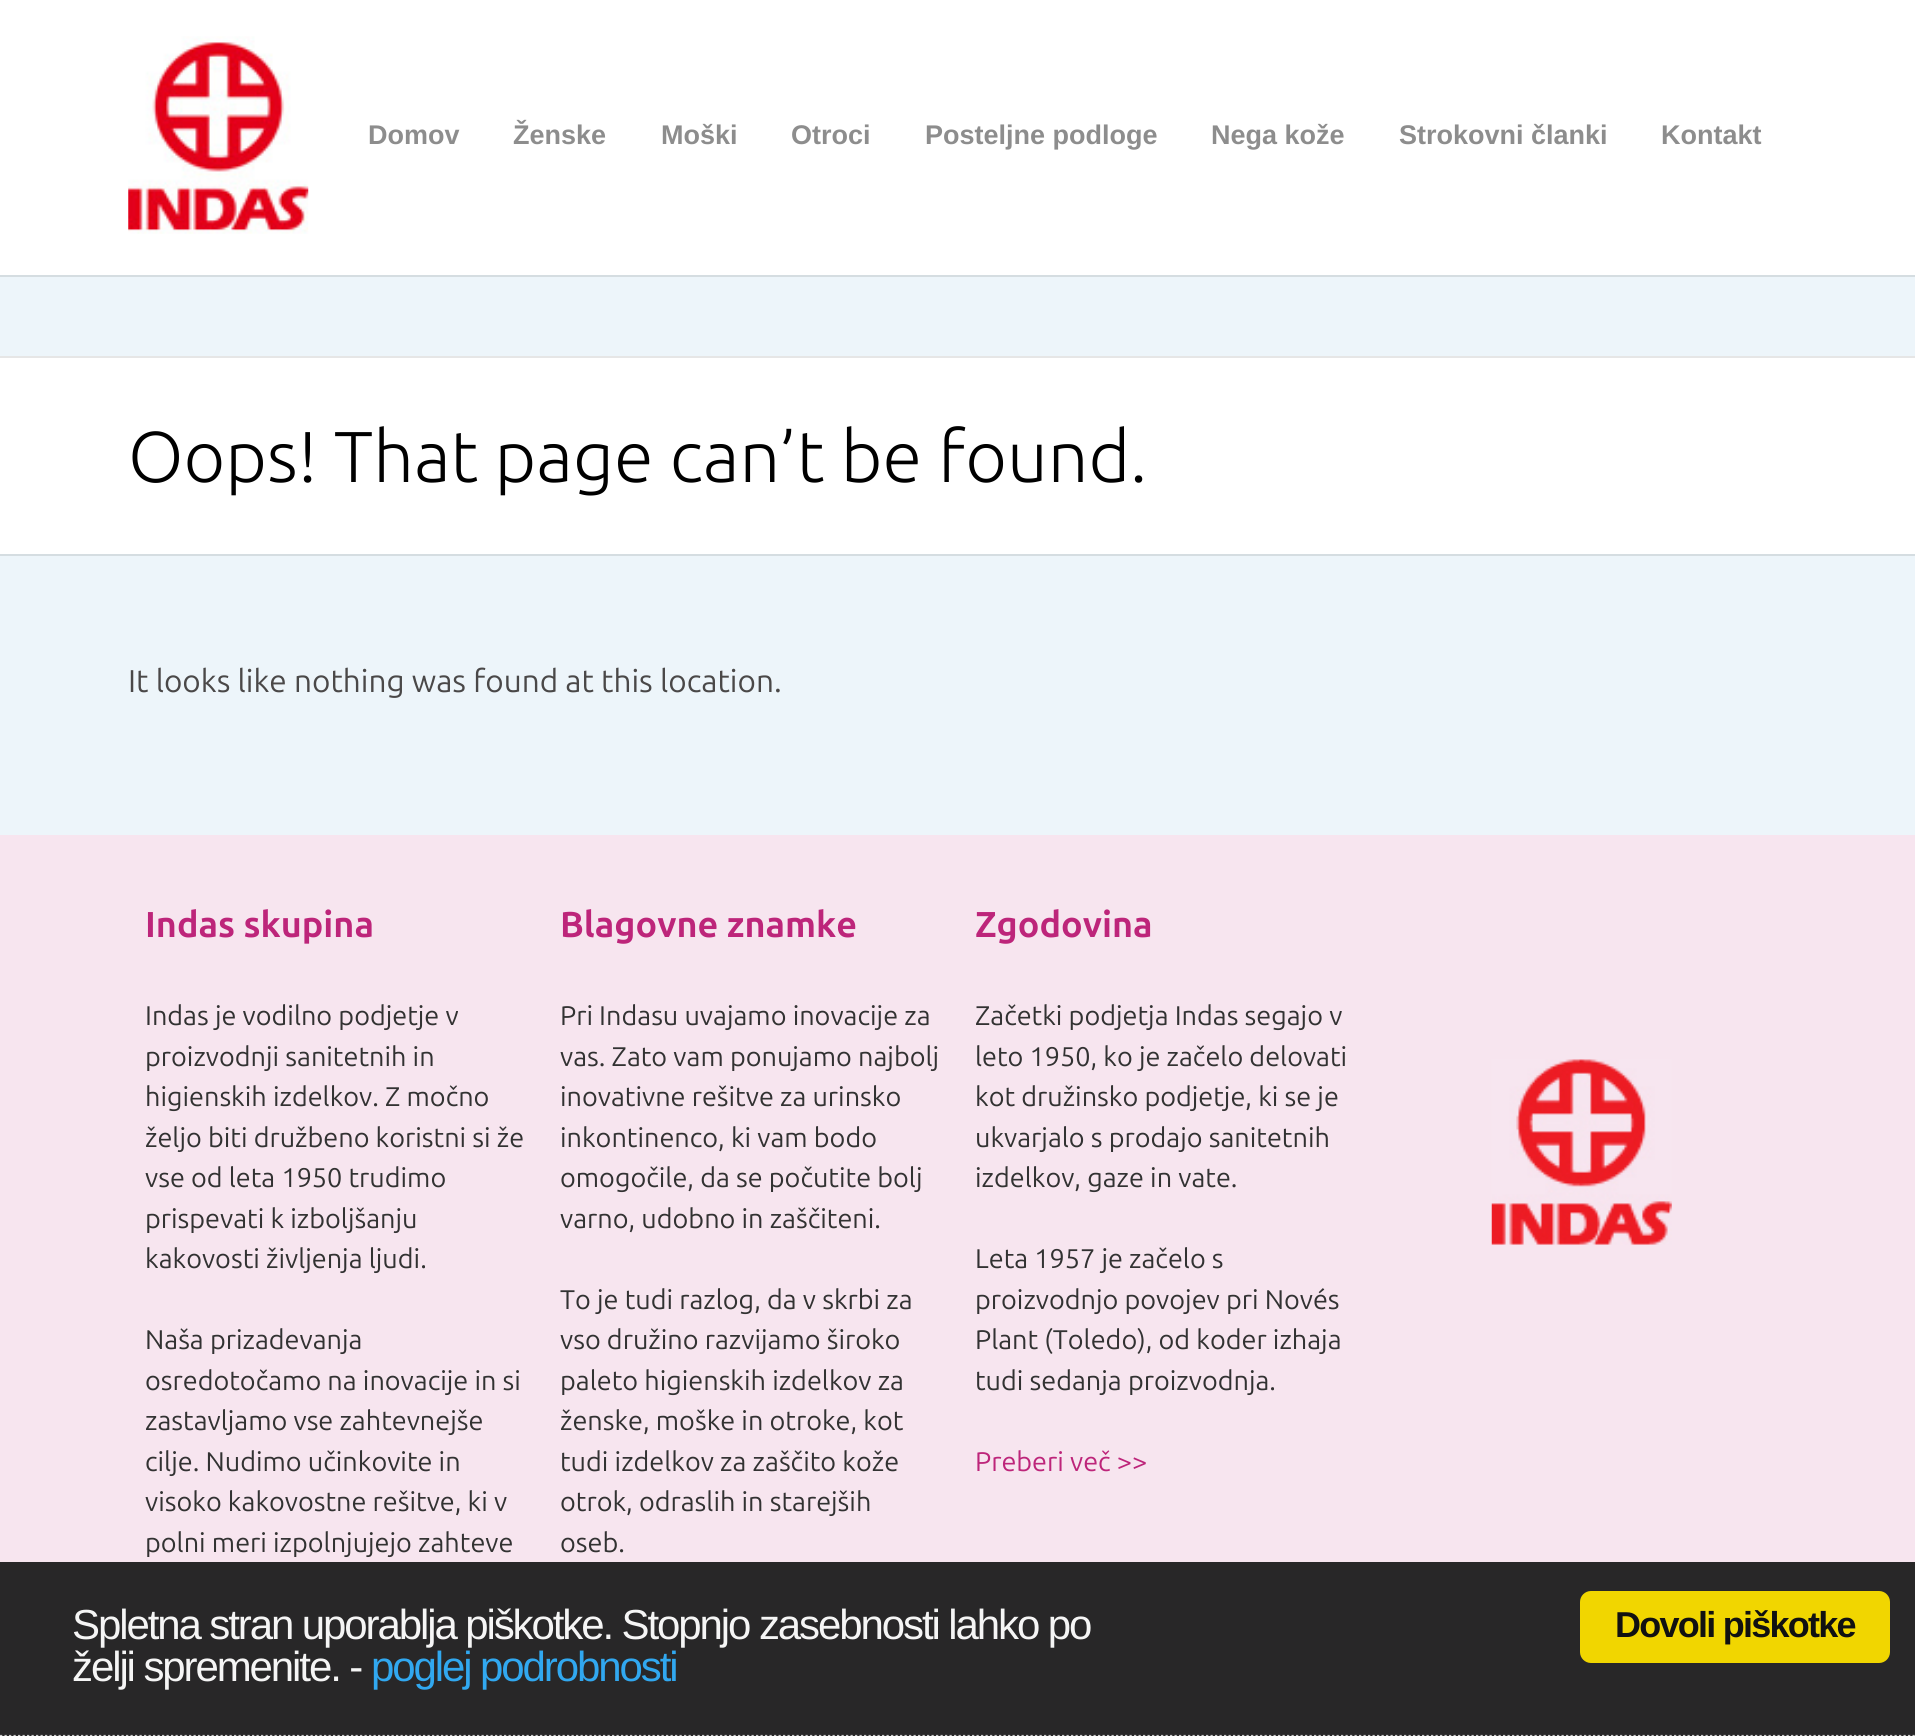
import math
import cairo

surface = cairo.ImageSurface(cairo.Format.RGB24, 1915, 1736)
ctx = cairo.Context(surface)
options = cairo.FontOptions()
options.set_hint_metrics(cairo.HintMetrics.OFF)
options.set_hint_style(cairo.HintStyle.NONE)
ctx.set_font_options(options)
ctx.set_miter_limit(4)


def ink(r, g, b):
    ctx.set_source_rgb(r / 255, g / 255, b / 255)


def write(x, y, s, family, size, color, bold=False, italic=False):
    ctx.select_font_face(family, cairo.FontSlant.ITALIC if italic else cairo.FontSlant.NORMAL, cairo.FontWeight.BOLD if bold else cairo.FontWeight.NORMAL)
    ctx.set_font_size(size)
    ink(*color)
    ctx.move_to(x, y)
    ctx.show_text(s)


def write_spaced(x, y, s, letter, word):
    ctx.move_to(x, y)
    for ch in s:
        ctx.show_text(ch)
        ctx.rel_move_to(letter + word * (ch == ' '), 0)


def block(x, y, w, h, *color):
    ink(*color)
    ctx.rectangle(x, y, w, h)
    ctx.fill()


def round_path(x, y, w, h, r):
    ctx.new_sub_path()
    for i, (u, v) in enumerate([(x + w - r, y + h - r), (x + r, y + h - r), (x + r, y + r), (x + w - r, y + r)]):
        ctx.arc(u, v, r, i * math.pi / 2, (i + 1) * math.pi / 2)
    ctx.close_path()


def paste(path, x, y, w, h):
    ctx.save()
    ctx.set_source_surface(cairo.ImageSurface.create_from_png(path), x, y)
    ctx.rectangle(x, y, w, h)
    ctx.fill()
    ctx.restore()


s1 = dict(family="Liberation Sans", size=27, color=(141, 141, 141), bold=True)
s2 = dict(family="Ubuntu Light", size=72, color=(0, 0, 0))
s3 = dict(family="Ubuntu", size=31.5, color=(74, 72, 72))
s4 = dict(family="Ubuntu", size=36, color=(189, 37, 122), bold=True)
s5 = dict(family="Ubuntu", size=27, color=(50, 50, 50))
s6 = dict(family="Ubuntu", size=27, color=(189, 37, 122))

ink(237, 245, 250)
ctx.paint()
block(0, 0, 1915, 275, 255, 255, 255)
paste("pic1.png", 128, 36, 181, 198)
write(368, 144, "Domov", **s1)
write(513, 144, "Ženske", **s1)
write(661, 144, "Moški", **s1)
write(791, 144, "Otroci", **s1)
write(925, 144, "Posteljne podloge", **s1)
write(1211, 144, "Nega kože", **s1)
write(1399, 144, "Strokovni članki", **s1)
write(1661, 144, "Kontakt", **s1)
block(0, 275, 1915, 2, 213, 221, 225)
block(0, 554, 1915, 2, 213, 221, 225)
block(0, 358, 1915, 196, 255, 255, 255)
block(0, 356, 1915, 2, 230, 230, 230)
write(128, 482, "Oops! That page can’t be found.", **s2)
write(128, 692, "It looks like nothing was found at this location.", **s3)
block(0, 835, 1915, 727, 247, 229, 239)
block(0, 1562, 1915, 174, 40, 39, 40)
write(145, 937, "Indas skupina", **s4)
write(145, 1025, "Indas je vodilno podjetje v", **s5)
write(145, 1066, "proizvodnji sanitetnih in", **s5)
write(145, 1106, "higienskih izdelkov. Z močno", **s5)
write(145, 1147, "željo biti družbeno koristni si že", **s5)
write(145, 1187, "vse od leta 1950 trudimo", **s5)
write(145, 1228, "prispevati k izboljšanju", **s5)
write(145, 1268, "kakovosti življenja ljudi.", **s5)
write(145, 1349, "Naša prizadevanja", **s5)
write(145, 1390, "osredotočamo na inovacije in si", **s5)
write(145, 1430, "zastavljamo vse zahtevnejše", **s5)
write(145, 1471, "cilje. Nudimo učinkovite in", **s5)
write(145, 1511, "visoko kakovostne rešitve, ki v", **s5)
write(145, 1552, "polni meri izpolnjujejo zahteve", **s5)
write(560, 937, "Blagovne znamke", **s4)
write(560, 1025, "Pri Indasu uvajamo inovacije za", **s5)
write(560, 1066, "vas. Zato vam ponujamo najbolj", **s5)
write(560, 1106, "inovativne rešitve za urinsko", **s5)
write(560, 1147, "inkontinenco, ki vam bodo", **s5)
write(560, 1187, "omogočile, da se počutite bolj", **s5)
write(560, 1228, "varno, udobno in zaščiteni.", **s5)
write(560, 1309, "To je tudi razlog, da v skrbi za", **s5)
write(560, 1349, "vso družino razvijamo široko", **s5)
write(560, 1390, "paleto higienskih izdelkov za", **s5)
write(560, 1430, "ženske, moške in otroke, kot", **s5)
write(560, 1471, "tudi izdelkov za zaščito kože", **s5)
write(560, 1511, "otrok, odraslih in starejših", **s5)
write(560, 1552, "oseb.", **s5)
write(975, 937, "Zgodovina", **s4)
write(975, 1025, "Začetki podjetja Indas segajo v", **s5)
write(975, 1066, "leto 1950, ko je začelo delovati", **s5)
write(975, 1106, "kot družinsko podjetje, ki se je", **s5)
write(975, 1147, "ukvarjalo s prodajo sanitetnih", **s5)
write(975, 1187, "izdelkov, gaze in vate.", **s5)
write(975, 1268, "Leta 1957 je začelo s", **s5)
write(975, 1309, "proizvodnjo povojev pri Novés", **s5)
write(975, 1349, "Plant (Toledo), od koder izhaja", **s5)
write(975, 1390, "tudi sedanja proizvodnja.", **s5)
write(975, 1471, "Preberi več >>", **s6)
paste("pic2.png", 1491, 1059, 181, 186)
ctx.new_path()
ctx.move_to(0, 1736)
ctx.line_to(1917, 1736)
ink(204, 204, 204)
ctx.set_line_width(2.2)
ctx.set_dash([2.25, 2.25])
ctx.stroke()
ctx.select_font_face("Liberation Sans")
ctx.set_font_size(42)
ink(245, 245, 245)
write_spaced(72, 1639, "Spletna stran uporablja piškotke. Stopnjo zasebnosti lahko po", -2.1, 0)
write_spaced(72, 1681, "želji spremenite. -", -2.1, 0)
ink(49, 168, 240)
write_spaced(371, 1681, "poglej podrobnosti", -2.1, 0)
ink(241, 214, 0)
round_path(1580, 1591, 310, 72, 11)
ctx.fill()
ctx.select_font_face("Liberation Sans", cairo.FontSlant.NORMAL, cairo.FontWeight.BOLD)
ctx.set_font_size(36)
ink(17, 17, 17)
write_spaced(1615, 1637, "Dovoli piškotke", -1.75, 0)
surface.write_to_png("screenshot.png")
